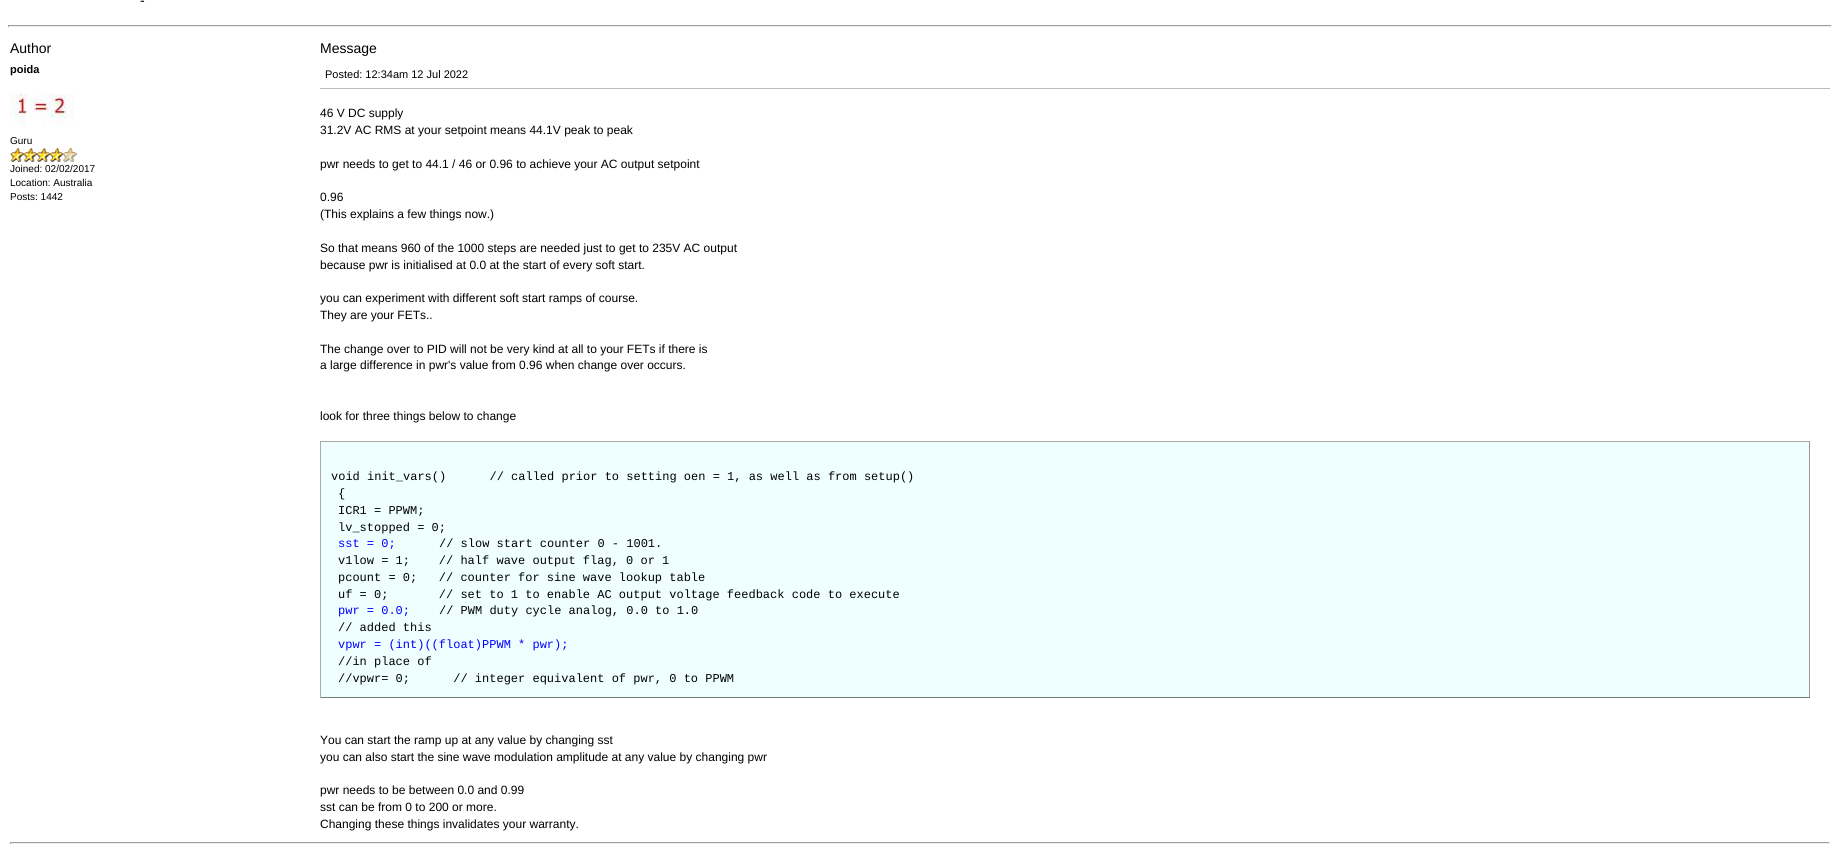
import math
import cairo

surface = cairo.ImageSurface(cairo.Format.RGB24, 1840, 851)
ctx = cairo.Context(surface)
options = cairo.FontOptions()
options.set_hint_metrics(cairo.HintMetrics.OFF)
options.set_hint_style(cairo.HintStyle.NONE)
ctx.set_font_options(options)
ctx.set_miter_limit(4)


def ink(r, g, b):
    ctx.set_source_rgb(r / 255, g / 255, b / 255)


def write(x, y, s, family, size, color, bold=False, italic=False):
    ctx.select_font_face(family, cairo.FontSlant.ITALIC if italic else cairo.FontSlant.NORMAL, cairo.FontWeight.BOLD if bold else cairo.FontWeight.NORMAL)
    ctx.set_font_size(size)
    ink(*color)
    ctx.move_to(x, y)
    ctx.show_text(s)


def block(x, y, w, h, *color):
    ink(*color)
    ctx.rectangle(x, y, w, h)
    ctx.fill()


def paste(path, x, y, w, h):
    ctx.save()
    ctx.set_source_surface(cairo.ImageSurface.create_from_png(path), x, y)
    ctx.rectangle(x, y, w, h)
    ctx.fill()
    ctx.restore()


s1 = dict(family="Liberation Sans", size=14, color=(0, 0, 0))
s2 = dict(family="Liberation Sans", size=11, color=(0, 0, 0), bold=True)
s3 = dict(family="Liberation Sans", size=10, color=(0, 0, 0))
s4 = dict(family="Liberation Sans", size=11, color=(0, 0, 0))
s5 = dict(family="Liberation Sans", size=12, color=(0, 0, 0))
s6 = dict(family="Liberation Mono", size=12, color=(0, 0, 0))
s7 = dict(family="Liberation Mono", size=12, color=(0, 0, 255))

ink(255, 255, 255)
ctx.paint()
write(140, 5, "-", **s1)
block(8, 25, 1824, 1, 159, 159, 159)
block(1831, 25, 1, 2, 238, 238, 238)
block(8, 26, 1824, 1, 238, 238, 238)
block(8, 25, 1, 2, 159, 159, 159)
write(10, 53, "Author", **s1)
write(320, 53, "Message", **s1)
write(10, 73, "poida", **s2)
paste("pic1.png", 10, 93, 64, 33)
write(10, 144, "Guru", **s3)
paste("pic2.png", 10, 148, 67, 14)
write(10, 172, "Joined: 02/02/2017", **s3)
write(10, 186, "Location: Australia", **s3)
write(10, 200, "Posts: 1442", **s3)
block(320, 88, 1510, 1, 187, 187, 187)
write(325, 78, "Posted: 12:34am 12 Jul 2022", **s4)
write(320, 117, "46 V DC supply", **s5)
write(320, 134, "31.2V AC RMS at your setpoint means 44.1V peak to peak", **s5)
write(320, 168, "pwr needs to get to 44.1 / 46 or 0.96 to achieve your AC output setpoint", **s5)
write(320, 201, "0.96", **s5)
write(320, 218, "(This explains a few things now.)", **s5)
write(320, 252, "So that means 960 of the 1000 steps are needed just to get to 235V AC output", **s5)
write(320, 269, "because pwr is initialised at 0.0 at the start of every soft start.", **s5)
write(320, 302, "you can experiment with different soft start ramps of course.", **s5)
write(320, 319, "They are your FETs..", **s5)
write(320, 353, "The change over to PID will not be very kind at all to your FETs if there is", **s5)
write(320, 369, "a large difference in pwr's value from 0.96 when change over occurs.", **s5)
write(320, 420, "look for three things below to change", **s5)
block(321, 442, 1488, 255, 239, 255, 255)
block(320, 441, 1490, 1, 170, 170, 170)
block(1809, 441, 1, 257, 153, 153, 153)
block(320, 697, 1490, 1, 119, 119, 119)
block(320, 441, 1, 257, 170, 170, 170)
write(331, 480, "void init_vars()      // called prior to setting oen = 1, as well as from setup()", **s6)
write(338, 497, "{", **s6)
write(338, 514, "ICR1 = PPWM;", **s6)
write(338, 531, "lv_stopped = 0;", **s6)
write(338, 547, "sst = 0;", **s7)
write(439, 547, "// slow start counter 0 - 1001.", **s6)
write(338, 564, "v1low = 1;    // half wave output flag, 0 or 1", **s6)
write(338, 581, "pcount = 0;   // counter for sine wave lookup table", **s6)
write(338, 598, "uf = 0;       // set to 1 to enable AC output voltage feedback code to execute", **s6)
write(338, 614, "pwr = 0.0;", **s7)
write(439, 614, "// PWM duty cycle analog, 0.0 to 1.0", **s6)
write(338, 631, "// added this", **s6)
write(338, 648, "vpwr = (int)((float)PPWM * pwr);", **s7)
write(338, 665, "//in place of", **s6)
write(338, 682, "//vpwr= 0;      // integer equivalent of pwr, 0 to PPWM", **s6)
write(320, 744, "You can start the ramp up at any value by changing sst", **s5)
write(320, 761, "you can also start the sine wave modulation amplitude at any value by changing pwr", **s5)
write(320, 794, "pwr needs to be between 0.0 and 0.99", **s5)
write(320, 811, "sst can be from 0 to 200 or more.", **s5)
write(320, 828, "Changing these things invalidates your warranty.", **s5)
block(10, 842, 1820, 1, 159, 159, 159)
block(1829, 842, 1, 2, 238, 238, 238)
block(10, 843, 1820, 1, 238, 238, 238)
block(10, 842, 1, 2, 159, 159, 159)
surface.write_to_png("screenshot.png")
